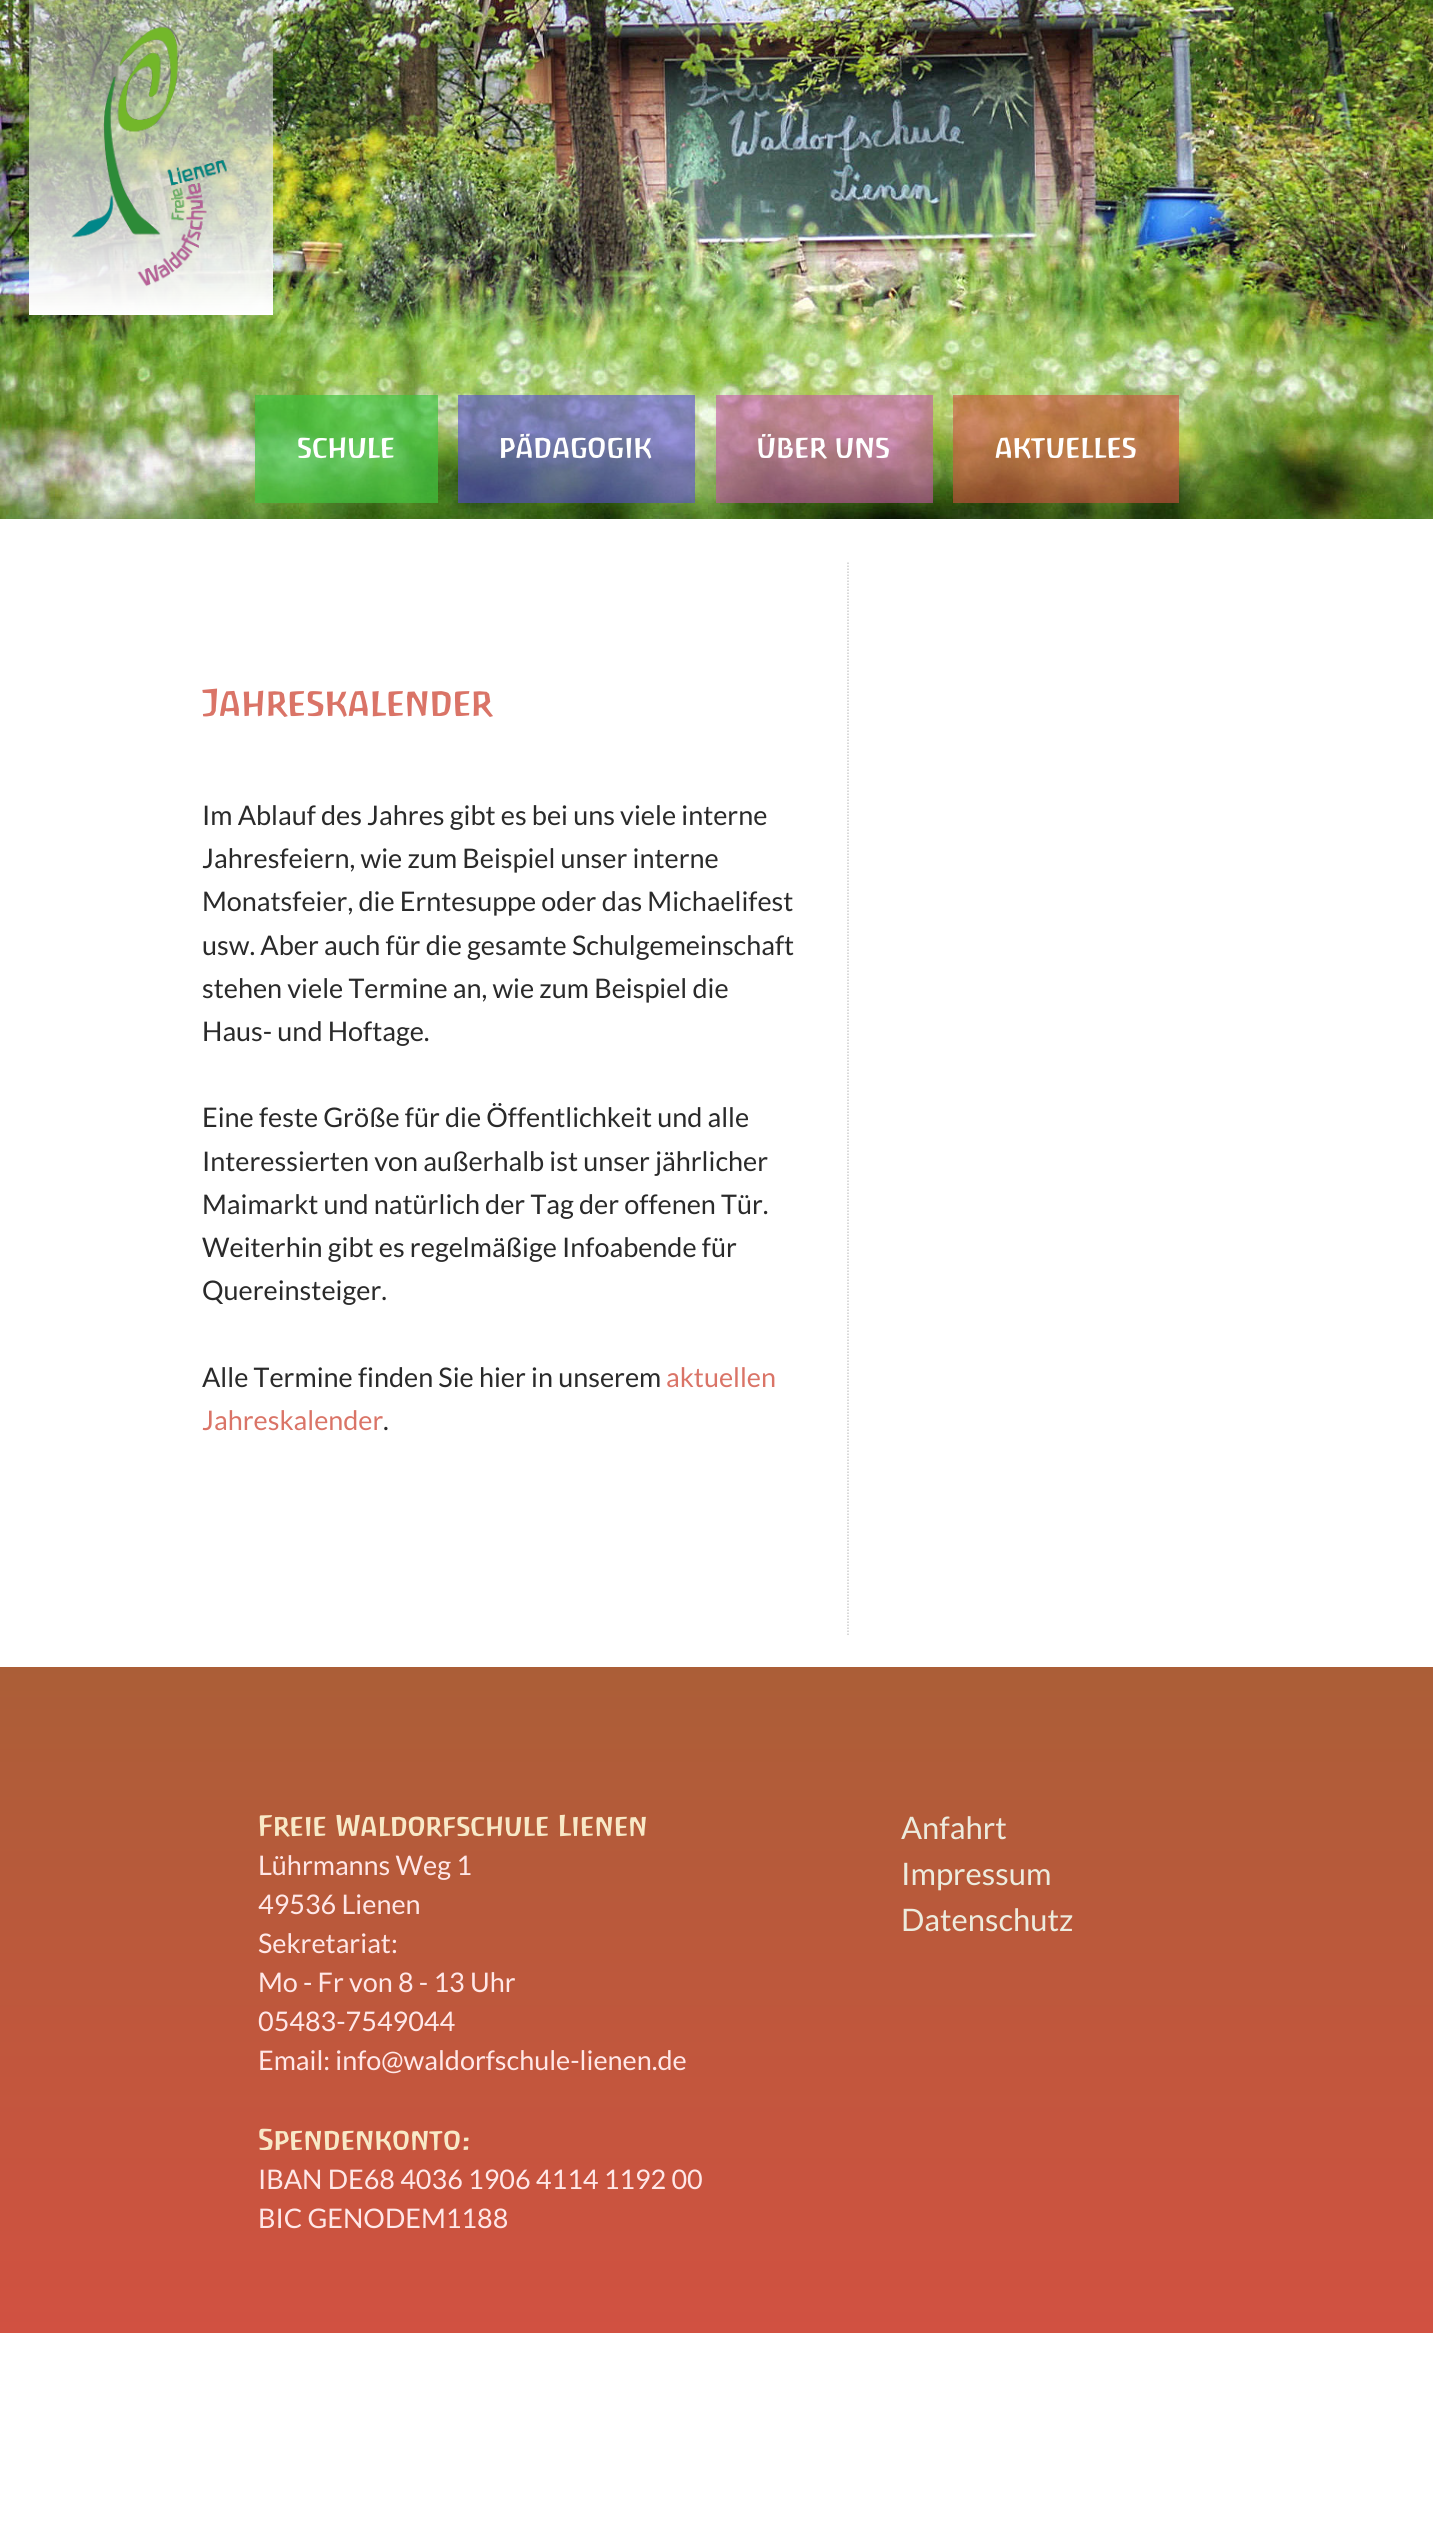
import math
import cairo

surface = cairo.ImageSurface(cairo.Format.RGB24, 1433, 2528)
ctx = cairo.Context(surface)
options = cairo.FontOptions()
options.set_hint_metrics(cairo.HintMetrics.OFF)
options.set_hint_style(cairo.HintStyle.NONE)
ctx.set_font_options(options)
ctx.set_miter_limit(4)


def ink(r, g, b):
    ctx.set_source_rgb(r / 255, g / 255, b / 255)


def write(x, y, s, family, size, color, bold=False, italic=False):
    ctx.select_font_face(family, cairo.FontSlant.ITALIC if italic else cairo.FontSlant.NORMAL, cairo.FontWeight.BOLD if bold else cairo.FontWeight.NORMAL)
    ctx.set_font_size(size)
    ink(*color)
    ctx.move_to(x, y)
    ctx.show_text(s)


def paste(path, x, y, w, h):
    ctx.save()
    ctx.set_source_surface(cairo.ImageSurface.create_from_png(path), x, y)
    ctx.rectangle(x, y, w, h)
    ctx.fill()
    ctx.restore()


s1 = dict(family="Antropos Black", size=25.75, color=(255, 255, 255))
s2 = dict(family="Antropos Black", size=35, color=(218, 116, 103))
s3 = dict(family="Lato", size=27, color=(42, 42, 42))
s4 = dict(family="Lato", size=27, color=(218, 116, 103))
s5 = dict(family="Antropos Black", size=27, color=(248, 233, 199))
s6 = dict(family="Lato", size=27, color=(255, 231, 231))
s7 = dict(family="Lato", size=31, color=(237, 235, 221))

ink(255, 255, 255)
ctx.paint()
paste("pic1.png", 0, 0, 1433, 519)
ctx.set_source_rgba(0.247, 0.765, 0.247, 0.7)
ctx.rectangle(255, 395, 183, 108)
ctx.fill()
write(297, 458, "SCHULE", **s1)
ctx.set_source_rgba(0.341, 0.302, 0.816, 0.6)
ctx.rectangle(458, 395, 237, 108)
ctx.fill()
write(500, 458, "PÄDAGOGIK", **s1)
ctx.set_source_rgba(0.765, 0.337, 0.647, 0.6)
ctx.rectangle(716, 395, 217, 108)
ctx.fill()
write(757, 458, "ÜBER UNS", **s1)
ctx.set_source_rgba(0.82, 0.318, 0.255, 0.6)
ctx.rectangle(953, 395, 226, 108)
ctx.fill()
write(995, 458, "AKTUELLES", **s1)
paste("pic2.png", 71, 26, 157, 261)
write(202, 716, "Jahreskalender", **s2)
write(202, 825, "Im Ablauf des Jahres gibt es bei uns viele interne", **s3)
write(202, 868, "Jahresfeiern, wie zum Beispiel unser interne", **s3)
write(202, 911, "Monatsfeier, die Erntesuppe oder das Michaelifest", **s3)
write(202, 955, "usw. Aber auch für die gesamte Schulgemeinschaft", **s3)
write(202, 998, "stehen viele Termine an, wie zum Beispiel die", **s3)
write(202, 1041, "Haus- und Hoftage.", **s3)
write(202, 1127, "Eine feste Größe für die Öffentlichkeit und alle", **s3)
write(202, 1171, "Interessierten von außerhalb ist unser jährlicher", **s3)
write(202, 1214, "Maimarkt und natürlich der Tag der offenen Tür.", **s3)
write(202, 1257, "Weiterhin gibt es regelmäßige Infoabende für", **s3)
write(202, 1300, "Quereinsteiger.", **s3)
write(202, 1387, "Alle Termine finden Sie hier in unserem", **s3)
write(666, 1387, "aktuellen", **s4)
write(202, 1430, "Jahreskalender", **s4)
write(383, 1430, ".", **s3)
ctx.new_path()
ctx.move_to(848, 562.5)
ctx.line_to(848, 1636.5)
ink(204, 204, 204)
ctx.set_line_width(1.5)
ctx.set_dash([1.5, 1.5])
ctx.stroke()
gradient = cairo.LinearGradient(717, 2333, 717, 1667)
gradient.add_color_stop_rgba(0, 0.82, 0.318, 0.255, 1)
gradient.add_color_stop_rgba(1, 0.671, 0.369, 0.216, 1)
ctx.set_source(gradient)
ctx.rectangle(0, 1667, 1433, 666)
ctx.fill()
write(258, 1836, "Freie Waldorfschule Lienen", **s5)
write(258, 1875, "Lührmanns Weg 1", **s6)
write(258, 1914, "49536 Lienen", **s6)
write(258, 1953, "Sekretariat:", **s6)
write(258, 1992, "Mo - Fr von 8 - 13 Uhr", **s6)
write(258, 2031, "05483-7549044", **s6)
write(258, 2070, "Email: info@waldorfschule-lienen.de", **s6)
write(258, 2150, "Spendenkonto:", **s5)
write(258, 2189, "IBAN DE68 4036 1906 4114 1192 00", **s6)
write(258, 2228, "BIC GENODEM1188", **s6)
write(901, 1839, "Anfahrt", **s7)
write(901, 1885, "Impressum", **s7)
write(901, 1931, "Datenschutz", **s7)
surface.write_to_png("screenshot.png")
